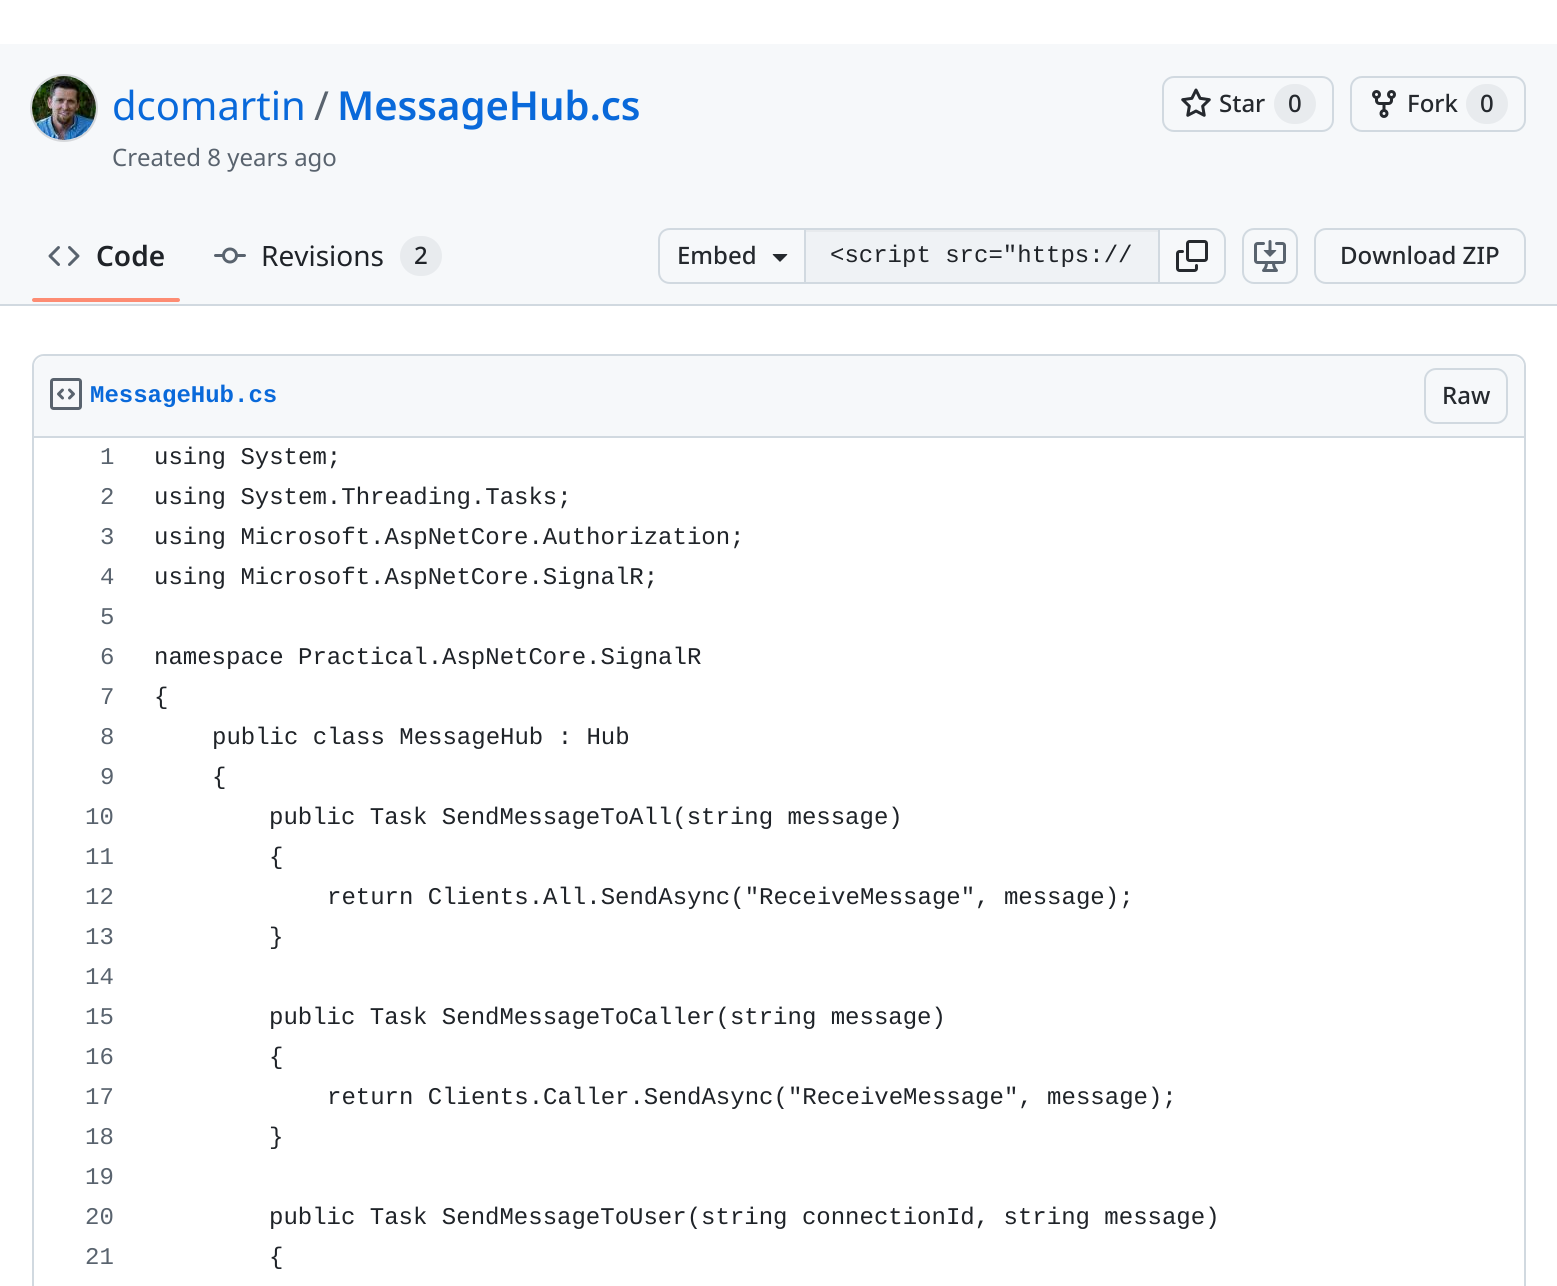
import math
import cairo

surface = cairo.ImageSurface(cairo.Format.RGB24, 1557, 1286)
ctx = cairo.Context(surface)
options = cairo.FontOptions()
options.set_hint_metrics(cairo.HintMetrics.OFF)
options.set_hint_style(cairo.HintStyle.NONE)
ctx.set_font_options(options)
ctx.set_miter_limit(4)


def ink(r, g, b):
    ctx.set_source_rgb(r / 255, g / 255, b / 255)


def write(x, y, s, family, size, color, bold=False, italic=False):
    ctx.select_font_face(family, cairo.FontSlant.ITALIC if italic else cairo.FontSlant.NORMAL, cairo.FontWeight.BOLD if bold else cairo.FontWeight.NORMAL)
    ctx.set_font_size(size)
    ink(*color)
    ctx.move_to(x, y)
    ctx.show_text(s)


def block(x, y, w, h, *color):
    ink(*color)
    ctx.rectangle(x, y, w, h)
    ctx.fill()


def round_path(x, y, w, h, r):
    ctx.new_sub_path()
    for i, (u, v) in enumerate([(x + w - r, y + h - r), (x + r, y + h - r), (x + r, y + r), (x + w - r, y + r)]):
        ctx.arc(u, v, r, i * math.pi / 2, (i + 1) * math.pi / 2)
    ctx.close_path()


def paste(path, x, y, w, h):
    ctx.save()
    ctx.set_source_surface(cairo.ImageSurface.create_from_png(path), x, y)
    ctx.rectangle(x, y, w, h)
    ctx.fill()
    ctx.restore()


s1 = dict(family="Noto Sans", size=40, color=(9, 105, 218))
s2 = dict(family="Noto Sans", size=40, color=(89, 99, 110))
s3 = dict(family="Noto Sans SemiBold", size=40, color=(9, 105, 218))
s4 = dict(family="Noto Sans", size=24, color=(89, 99, 110))
s5 = dict(family="Noto Sans Medium", size=24, color=(37, 41, 46))
s6 = dict(family="Noto Sans SemiBold", size=28, color=(31, 35, 40))
s7 = dict(family="Noto Sans", size=28, color=(31, 35, 40))
s8 = dict(family="Noto Sans Medium", size=24, color=(31, 35, 40))
s9 = dict(family="Liberation Mono", size=24, color=(31, 35, 40))
s10 = dict(family="Liberation Mono", size=24, color=(9, 105, 218), bold=True)
s11 = dict(family="Liberation Mono", size=24, color=(89, 99, 110))

ink(255, 255, 255)
ctx.paint()
block(0, 44, 1557, 260, 246, 248, 250)
block(0, 304, 1557, 2, 209, 217, 224)
ctx.arc(64, 108, 33, 0, 2 * math.pi)
ink(214, 216, 219)
ctx.stroke()
ink(255, 255, 255)
ctx.arc(64, 108, 32, 0, 2 * math.pi)
ctx.fill()
paste("pic1.png", 32, 76, 64, 64)
write(112, 120, "dcomartin", **s1)
write(314, 120, "/", **s2)
write(337, 120, "MessageHub.cs", **s3)
write(112, 166, "Created 8 years ago", **s4)
round_path(1163, 77, 170, 54, 11)
ink(209, 217, 224)
ctx.stroke()
paste("pic2.png", 1181, 88, 30, 29)
write(1219, 112, "Star", **s5)
ink(232, 235, 238)
round_path(1274, 84, 42, 40, 20)
ctx.fill()
write(1288, 112, "0", **s5)
round_path(1351, 77, 174, 54, 11)
ink(209, 217, 224)
ctx.stroke()
paste("pic3.png", 1372, 90, 24, 28)
write(1407, 112, "Fork", **s5)
ink(232, 235, 238)
round_path(1466, 84, 42, 40, 20)
ctx.fill()
write(1480, 112, "0", **s5)
paste("pic4.png", 48, 246, 32, 20)
write(96, 266, "Code", **s6)
ink(253, 140, 115)
round_path(32, 298, 148, 4, 2)
ctx.fill()
paste("pic5.png", 214, 247, 32, 17)
write(261, 266, "Revisions", **s7)
ink(232, 235, 238)
round_path(400, 236, 42, 40, 20)
ctx.fill()
write(414, 264, "2", **s8)
ink(209, 217, 224)
ctx.set_fill_rule(cairo.FillRule.EVEN_ODD)
ctx.new_path()
ctx.move_to(670, 228)
ctx.line_to(804, 228)
ctx.line_to(804, 284)
ctx.line_to(670, 284)
ctx.curve_to(663, 284, 658, 279, 658, 272)
ctx.line_to(658, 240)
ctx.curve_to(658, 233, 663, 228, 670, 228)
ctx.close_path()
ctx.move_to(670, 230)
ctx.line_to(804, 230)
ctx.line_to(804, 282)
ctx.line_to(670, 282)
ctx.curve_to(664, 282, 660, 278, 660, 272)
ctx.line_to(660, 240)
ctx.curve_to(660, 234, 664, 230, 670, 230)
ctx.close_path()
ctx.fill()
write(677, 264, "Embed", **s5)
paste("pic6.png", 772, 254, 16, 8)
block(806, 232, 352, 50, 239, 242, 245)
block(806, 230, 352, 2, 231, 234, 237)
block(804, 228, 354, 2, 209, 217, 224)
block(804, 282, 354, 2, 209, 217, 224)
block(804, 228, 2, 56, 209, 217, 224)
write(830, 262, "<script src=\"https://", **s9)
ctx.new_path()
ctx.move_to(1159, 229)
ctx.line_to(1214, 229)
ctx.curve_to(1220, 229, 1225, 234, 1225, 240)
ctx.line_to(1225, 272)
ctx.curve_to(1225, 278, 1220, 283, 1214, 283)
ctx.line_to(1159, 283)
ctx.close_path()
ink(209, 217, 224)
ctx.stroke()
paste("pic7.png", 1176, 240, 32, 32)
round_path(1243, 229, 54, 54, 11)
ctx.stroke()
paste("pic8.png", 1254, 240, 32, 32)
round_path(1315, 229, 210, 54, 11)
ctx.stroke()
write(1340, 264, "Download ZIP", **s5)
round_path(33, 355, 1492, 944, 11)
ink(209, 217, 224)
ctx.stroke()
ink(246, 248, 250)
ctx.new_path()
ctx.move_to(46, 356)
ctx.line_to(1512, 356)
ctx.curve_to(1518.5, 356, 1524, 361.5, 1524, 368)
ctx.line_to(1524, 438)
ctx.line_to(34, 438)
ctx.line_to(34, 368)
ctx.curve_to(34, 361.5, 39.5, 356, 46, 356)
ctx.close_path()
ctx.fill()
block(34, 436, 1490, 2, 209, 217, 224)
paste("pic9.png", 50, 378, 32, 32)
write(90, 402, "MessageHub.cs", **s10)
round_path(1425, 369, 82, 54, 11)
ink(209, 217, 224)
ctx.stroke()
write(1442, 404, "Raw", **s5)
write(100, 464, "1", **s11)
write(154, 464, "using System;", **s9)
write(100, 504, "2", **s11)
write(154, 504, "using System.Threading.Tasks;", **s9)
write(100, 544, "3", **s11)
write(154, 544, "using Microsoft.AspNetCore.Authorization;", **s9)
write(100, 584, "4", **s11)
write(154, 584, "using Microsoft.AspNetCore.SignalR;", **s9)
write(100, 624, "5", **s11)
write(100, 664, "6", **s11)
write(154, 664, "namespace Practical.AspNetCore.SignalR", **s9)
write(100, 704, "7", **s11)
write(154, 704, "{", **s9)
write(100, 744, "8", **s11)
write(212, 744, "public class MessageHub : Hub", **s9)
write(100, 784, "9", **s11)
write(212, 784, "{", **s9)
write(85, 824, "10", **s11)
write(269, 824, "public Task SendMessageToAll(string message)", **s9)
write(85, 864, "11", **s11)
write(269, 864, "{", **s9)
write(85, 904, "12", **s11)
write(327, 904, "return Clients.All.SendAsync(\"ReceiveMessage\", message);", **s9)
write(85, 944, "13", **s11)
write(269, 944, "}", **s9)
write(85, 984, "14", **s11)
write(85, 1024, "15", **s11)
write(269, 1024, "public Task SendMessageToCaller(string message)", **s9)
write(85, 1064, "16", **s11)
write(269, 1064, "{", **s9)
write(85, 1104, "17", **s11)
write(327, 1104, "return Clients.Caller.SendAsync(\"ReceiveMessage\", message);", **s9)
write(85, 1144, "18", **s11)
write(269, 1144, "}", **s9)
write(85, 1184, "19", **s11)
write(85, 1224, "20", **s11)
write(269, 1224, "public Task SendMessageToUser(string connectionId, string message)", **s9)
write(85, 1264, "21", **s11)
write(269, 1264, "{", **s9)
surface.write_to_png("screenshot.png")
